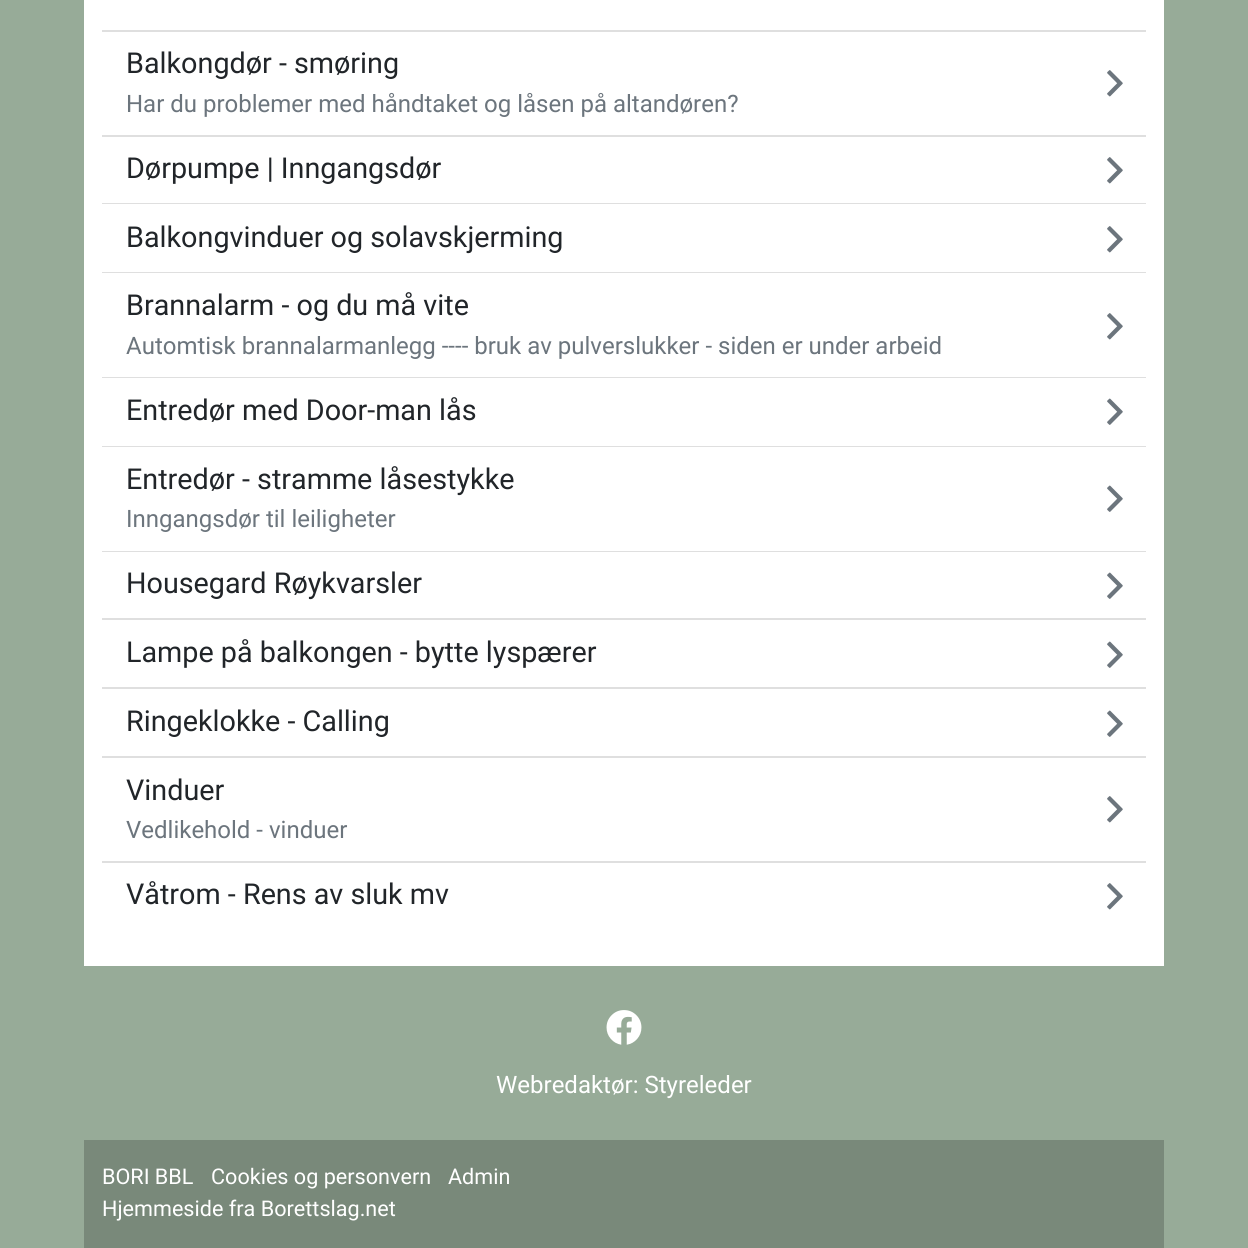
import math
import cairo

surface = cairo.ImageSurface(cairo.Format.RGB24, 1248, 1248)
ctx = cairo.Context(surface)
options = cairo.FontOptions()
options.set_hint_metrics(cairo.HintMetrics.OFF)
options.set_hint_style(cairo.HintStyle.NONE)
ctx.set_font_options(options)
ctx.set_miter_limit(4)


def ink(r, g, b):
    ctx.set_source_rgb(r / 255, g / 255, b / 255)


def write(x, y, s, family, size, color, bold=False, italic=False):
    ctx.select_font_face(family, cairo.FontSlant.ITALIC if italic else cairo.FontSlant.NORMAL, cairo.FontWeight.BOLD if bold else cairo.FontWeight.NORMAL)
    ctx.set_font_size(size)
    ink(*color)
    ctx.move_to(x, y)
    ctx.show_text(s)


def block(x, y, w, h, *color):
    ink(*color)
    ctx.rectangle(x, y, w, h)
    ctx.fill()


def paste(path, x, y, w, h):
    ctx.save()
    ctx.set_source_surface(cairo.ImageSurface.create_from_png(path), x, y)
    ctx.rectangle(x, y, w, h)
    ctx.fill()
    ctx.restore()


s1 = dict(family="Roboto", size=28.75, color=(33, 37, 41))
s2 = dict(family="Roboto", size=24, color=(108, 117, 125))
s3 = dict(family="Roboto", size=24, color=(255, 255, 255))
s4 = dict(family="Roboto", size=21.6, color=(255, 255, 255))

ink(151, 171, 152)
ctx.paint()
block(84, 0, 1080, 966, 255, 255, 255)
block(102, 30, 1044, 2, 223, 223, 223)
block(102, 135, 1044, 2, 223, 223, 223)
write(126, 73, "Balkongdør - smøring", **s1)
paste("pic1.png", 1107, 70, 16, 27)
write(126, 112, "Har du problemer med håndtaket og låsen på altandøren?", **s2)
block(102, 203, 1044, 1, 223, 223, 223)
write(126, 178, "Dørpumpe | Inngangsdør", **s1)
paste("pic1.png", 1107, 157, 16, 27)
block(102, 272, 1044, 1, 223, 223, 223)
write(126, 247, "Balkongvinduer og solavskjerming", **s1)
paste("pic1.png", 1107, 226, 16, 27)
block(102, 377, 1044, 1, 223, 223, 223)
write(126, 315, "Brannalarm - og du må vite", **s1)
paste("pic1.png", 1107, 313, 16, 27)
write(126, 354, "Automtisk brannalarmanlegg ---- bruk av pulverslukker - siden er under arbeid", **s2)
block(102, 446, 1044, 1, 223, 223, 223)
write(126, 420, "Entredør med Door-man lås", **s1)
paste("pic2.png", 1107, 398, 16, 27)
block(102, 551, 1044, 1, 223, 223, 223)
write(126, 489, "Entredør - stramme låsestykke", **s1)
paste("pic2.png", 1107, 485, 16, 27)
write(126, 527, "Inngangsdør til leiligheter", **s2)
block(102, 618, 1044, 2, 223, 223, 223)
write(126, 593, "Housegard Røykvarsler", **s1)
paste("pic2.png", 1107, 572, 16, 27)
block(102, 687, 1044, 2, 223, 223, 223)
write(126, 662, "Lampe på balkongen - bytte lyspærer", **s1)
paste("pic2.png", 1107, 641, 16, 27)
block(102, 756, 1044, 2, 223, 223, 223)
write(126, 731, "Ringeklokke - Calling", **s1)
paste("pic2.png", 1107, 710, 16, 27)
block(102, 861, 1044, 2, 223, 223, 223)
write(126, 800, "Vinduer", **s1)
paste("pic1.png", 1107, 796, 16, 27)
write(126, 838, "Vedlikehold - vinduer", **s2)
write(126, 904, "Våtrom - Rens av sluk mv", **s1)
paste("pic1.png", 1107, 883, 16, 27)
paste("pic3.png", 606, 1010, 36, 35)
write(496, 1093, "Webredaktør: Styreleder", **s3)
block(84, 1140, 1080, 108, 121, 137, 122)
write(102, 1184, "BORI BBL", **s4)
write(211, 1184, "Cookies og personvern", **s4)
write(448, 1184, "Admin", **s4)
write(102, 1216, "Hjemmeside fra Borettslag.net", **s4)
surface.write_to_png("screenshot.png")
